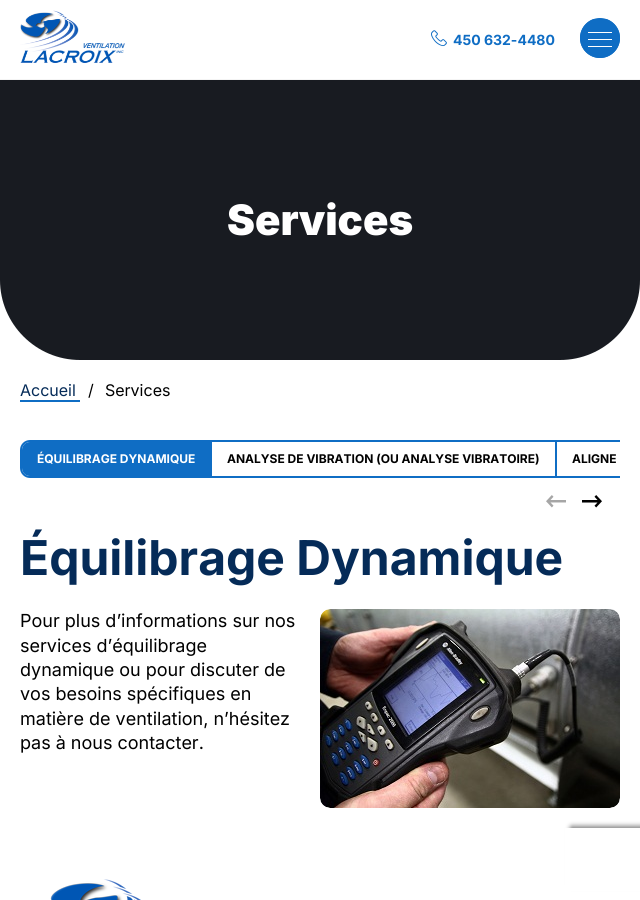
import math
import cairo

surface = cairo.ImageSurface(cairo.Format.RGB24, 640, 900)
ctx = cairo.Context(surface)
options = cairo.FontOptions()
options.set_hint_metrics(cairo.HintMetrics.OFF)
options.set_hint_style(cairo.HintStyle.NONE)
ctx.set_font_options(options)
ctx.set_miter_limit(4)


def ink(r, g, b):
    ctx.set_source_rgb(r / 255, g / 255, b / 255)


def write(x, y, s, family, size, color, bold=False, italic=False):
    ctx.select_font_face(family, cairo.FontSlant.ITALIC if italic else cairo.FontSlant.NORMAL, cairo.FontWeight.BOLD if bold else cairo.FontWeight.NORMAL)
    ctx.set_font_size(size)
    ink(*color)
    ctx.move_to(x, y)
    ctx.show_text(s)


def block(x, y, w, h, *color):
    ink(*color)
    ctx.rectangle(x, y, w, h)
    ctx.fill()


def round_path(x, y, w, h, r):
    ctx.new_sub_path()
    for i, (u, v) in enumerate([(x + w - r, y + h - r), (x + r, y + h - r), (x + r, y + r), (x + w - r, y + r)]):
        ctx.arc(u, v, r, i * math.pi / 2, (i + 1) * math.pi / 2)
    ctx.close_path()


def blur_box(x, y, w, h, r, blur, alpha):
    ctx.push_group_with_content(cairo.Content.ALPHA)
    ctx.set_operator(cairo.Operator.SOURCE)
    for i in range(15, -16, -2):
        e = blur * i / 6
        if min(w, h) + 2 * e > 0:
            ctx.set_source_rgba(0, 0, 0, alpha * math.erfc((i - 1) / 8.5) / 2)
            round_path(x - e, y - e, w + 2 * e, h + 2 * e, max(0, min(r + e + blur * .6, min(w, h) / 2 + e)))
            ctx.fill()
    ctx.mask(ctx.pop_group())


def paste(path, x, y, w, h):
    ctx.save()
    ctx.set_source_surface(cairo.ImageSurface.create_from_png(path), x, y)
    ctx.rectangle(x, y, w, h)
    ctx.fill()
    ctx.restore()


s1 = dict(family="Inter", size=14, color=(15, 109, 196), bold=True)
s2 = dict(family="Inter Black", size=42, color=(255, 255, 255))
s3 = dict(family="Inter", size=16, color=(5, 43, 88))
s4 = dict(family="Inter", size=16, color=(0, 0, 0))
s5 = dict(family="Inter", size=12, color=(255, 255, 255), bold=True)
s6 = dict(family="Inter", size=12, color=(0, 0, 0), bold=True)
s7 = dict(family="Inter", size=48, color=(5, 43, 88), bold=True)
s8 = dict(family="Inter", size=18, color=(0, 0, 0))

ink(255, 255, 255)
ctx.paint()
block(0, 79, 640, 1, 244, 244, 244)
paste("pic1.png", 20, 10, 105, 53)
paste("pic2.png", 431, 30, 16, 17)
write(453, 45, "450 632-4480", **s1)
ctx.new_path()
ctx.arc(600, 38, 20, 0, 2 * math.pi)
ctx.fill()
ctx.save()
round_path(580, 18, 40, 40, 20)
ctx.clip()
ctx.new_path()
ctx.move_to(580, 19)
ctx.line_to(620, 19)
ctx.line_to(620, 38)
ctx.curve_to(620, 49, 611, 58, 600, 58)
ctx.curve_to(589, 58, 580, 49, 580, 38)
ctx.close_path()
ctx.fill()
ctx.restore()
block(588, 39, 24, 1, 255, 255, 255)
block(588, 32, 24, 1, 255, 255, 255)
block(588, 46, 24, 1, 255, 255, 255)
ink(24, 27, 33)
ctx.new_path()
ctx.move_to(0, 80)
ctx.line_to(640, 80)
ctx.line_to(640, 280)
ctx.curve_to(640, 324, 604, 360, 560, 360)
ctx.line_to(80, 360)
ctx.curve_to(36, 360, 0, 324, 0, 280)
ctx.close_path()
ctx.fill()
write(227, 235, "Services", **s2)
write(20, 396, "Accueil", **s3)
block(20, 400, 60, 2, 15, 109, 196)
write(88, 396, "/", **s4)
write(105, 396, "Services", **s4)
ctx.new_path()
ctx.move_to(30, 441)
ctx.line_to(211, 441)
ctx.line_to(211, 477)
ctx.line_to(30, 477)
ctx.curve_to(25, 477, 21, 473, 21, 468)
ctx.line_to(21, 450)
ctx.curve_to(21, 445, 25, 441, 30, 441)
ctx.close_path()
ink(15, 109, 196)
ctx.stroke()
ctx.new_path()
ctx.move_to(30, 442)
ctx.line_to(210, 442)
ctx.line_to(210, 476)
ctx.line_to(30, 476)
ctx.curve_to(25.5, 476, 22, 472.5, 22, 468)
ctx.line_to(22, 450)
ctx.curve_to(22, 445.5, 25.5, 442, 30, 442)
ctx.close_path()
ctx.fill()
write(37, 463, "ÉQUILIBRAGE DYNAMIQUE", **s5)
block(212, 440, 408, 2, 15, 109, 196)
block(555, 440, 2, 38, 15, 109, 196)
block(212, 476, 408, 2, 15, 109, 196)
write(227, 463, "ANALYSE DE VIBRATION (OU ANALYSE VIBRATOIRE)", **s6)
write(572, 463, "ALIGNE", **s6)
paste("pic3.png", 546, 495, 20, 13)
paste("pic4.png", 582, 495, 20, 13)
write(20, 575, "Équilibrage Dynamique", **s7)
write(20, 627, "Pour plus d’informations sur nos", **s8)
write(20, 652, "services d’équilibrage", **s8)
write(20, 676, "dynamique ou pour discuter de", **s8)
write(20, 700, "vos besoins spécifiques en", **s8)
write(20, 725, "matière de ventilation, n’hésitez", **s8)
write(20, 749, "pas à nous contacter.", **s8)
paste("pic5.png", 320, 609, 300, 199)
ink(128, 128, 128)
blur_box(570, 826, 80, 60, 2, 2.5, 1)
block(565, 828, 75, 63, 255, 255, 255)
paste("pic6.png", 50, 879, 91, 21)
surface.write_to_png("screenshot.png")
